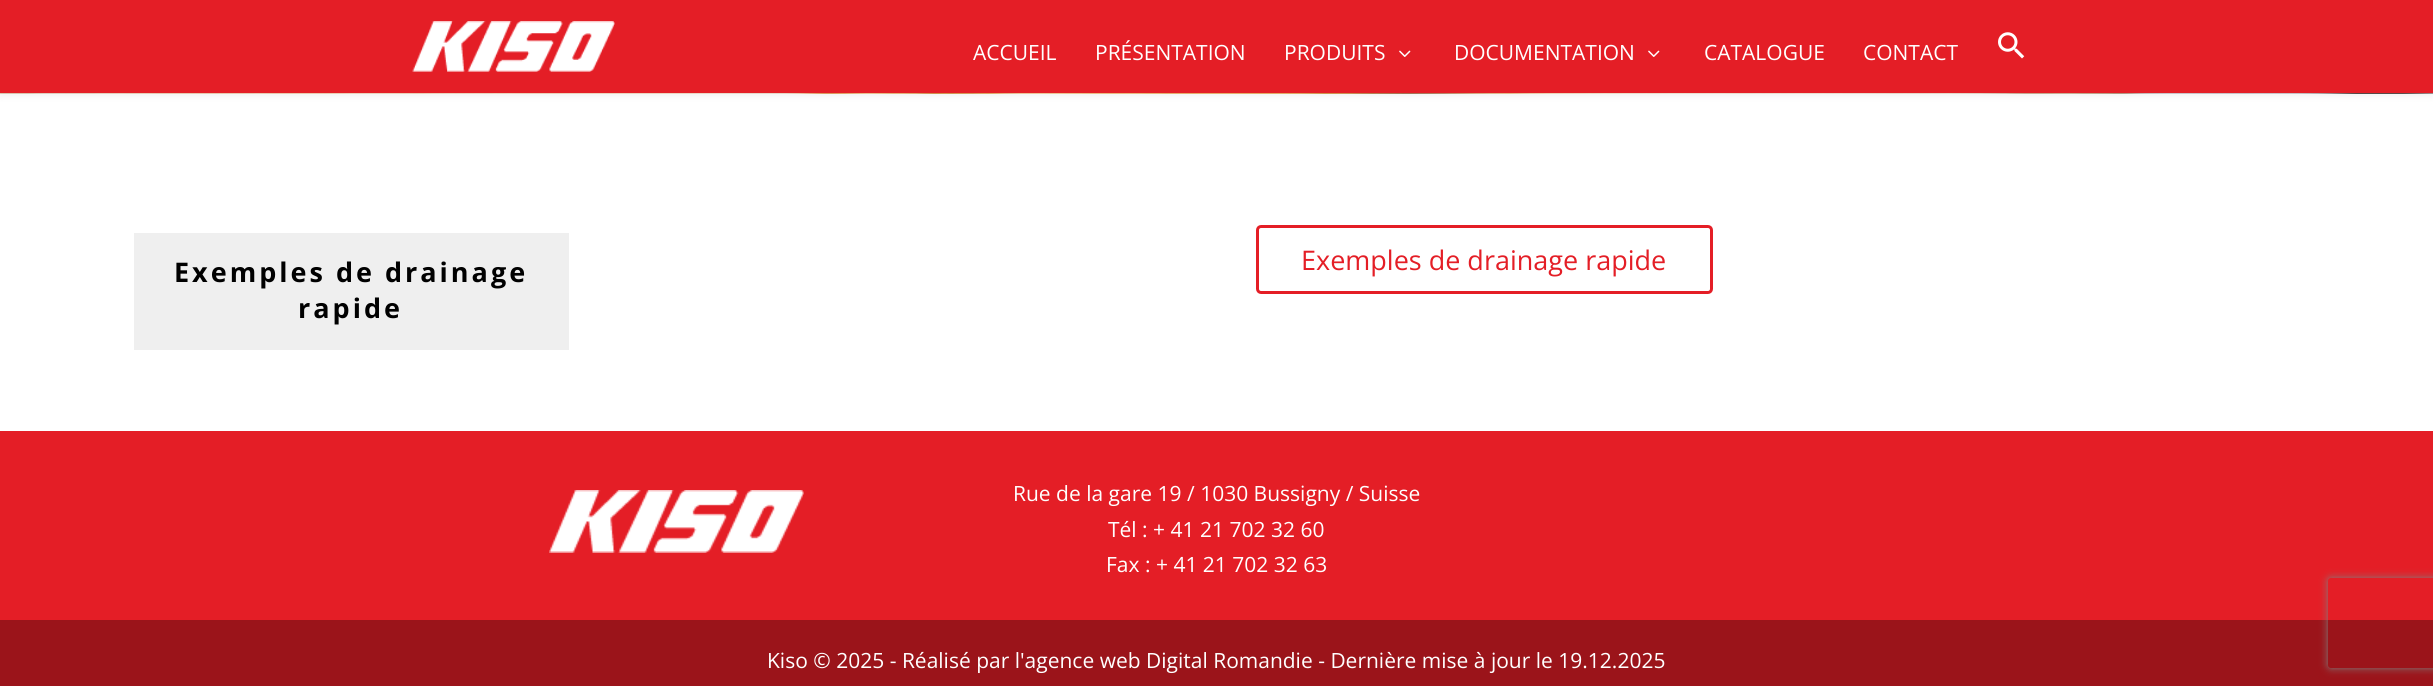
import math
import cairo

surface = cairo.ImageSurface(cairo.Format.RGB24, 2433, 688)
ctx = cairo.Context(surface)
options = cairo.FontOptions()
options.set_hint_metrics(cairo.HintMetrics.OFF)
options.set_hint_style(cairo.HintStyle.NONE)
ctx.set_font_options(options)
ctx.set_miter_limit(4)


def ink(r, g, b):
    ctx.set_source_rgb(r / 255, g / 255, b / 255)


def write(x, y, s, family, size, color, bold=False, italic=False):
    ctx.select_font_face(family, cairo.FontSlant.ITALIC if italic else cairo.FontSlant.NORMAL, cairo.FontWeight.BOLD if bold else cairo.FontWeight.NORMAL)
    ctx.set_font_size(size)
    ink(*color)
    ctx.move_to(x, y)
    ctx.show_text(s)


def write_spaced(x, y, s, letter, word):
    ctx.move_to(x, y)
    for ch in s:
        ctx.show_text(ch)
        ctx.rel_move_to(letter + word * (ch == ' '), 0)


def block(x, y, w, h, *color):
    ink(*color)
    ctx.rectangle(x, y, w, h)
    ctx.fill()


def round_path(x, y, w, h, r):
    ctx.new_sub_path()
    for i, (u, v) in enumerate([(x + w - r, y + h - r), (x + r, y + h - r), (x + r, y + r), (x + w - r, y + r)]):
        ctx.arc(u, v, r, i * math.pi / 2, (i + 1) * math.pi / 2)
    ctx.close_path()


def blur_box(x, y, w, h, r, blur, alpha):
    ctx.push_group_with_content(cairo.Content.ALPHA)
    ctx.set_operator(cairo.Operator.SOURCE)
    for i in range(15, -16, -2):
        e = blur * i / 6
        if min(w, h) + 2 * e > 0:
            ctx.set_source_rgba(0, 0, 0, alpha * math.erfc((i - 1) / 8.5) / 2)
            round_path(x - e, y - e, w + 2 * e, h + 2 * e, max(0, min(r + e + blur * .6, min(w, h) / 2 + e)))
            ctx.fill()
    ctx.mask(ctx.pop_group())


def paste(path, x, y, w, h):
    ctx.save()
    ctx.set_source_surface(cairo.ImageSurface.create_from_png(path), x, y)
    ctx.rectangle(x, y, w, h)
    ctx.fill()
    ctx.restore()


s1 = dict(family="Open Sans", size=21, color=(255, 255, 255))
s2 = dict(family="Open Sans", size=27, color=(228, 30, 38))

ink(255, 255, 255)
ctx.paint()
paste("pic4.png", 0, 93, 2433, 1)
ink(0, 0, 0)
blur_box(0, 0, 2433, 93, 0, 5, 0.1)
block(0, 0, 2433, 93, 228, 30, 38)
paste("pic1.png", 412, 21, 203, 51)
write(973, 60, "ACCUEIL", **s1)
write(1095, 60, "PRÉSENTATION", **s1)
write(1284, 60, "PRODUITS", **s1)
paste("pic2.png", 1399, 50, 12, 7)
write(1454, 60, "DOCUMENTATION", **s1)
paste("pic2.png", 1648, 50, 12, 7)
write(1704, 60, "CATALOGUE", **s1)
write(1863, 60, "CONTACT", **s1)
paste("pic3.png", 1998, 32, 27, 27)
block(134, 233, 435, 117, 239, 239, 239)
ctx.select_font_face("Open Sans", cairo.FontSlant.NORMAL, cairo.FontWeight.BOLD)
ctx.set_font_size(27)
ink(0, 0, 0)
write_spaced(174, 282, "Exemples de drainage", 3, 0)
write_spaced(298, 318, "rapide", 3, 0)
round_path(1257.5, 226.5, 454, 66, 3.5)
ink(228, 30, 38)
ctx.set_line_width(3)
ctx.stroke()
write(1301, 270, "Exemples de drainage rapide", **s2)
block(0, 431, 2433, 189, 228, 30, 38)
paste("pic5.png", 549, 490, 255, 63)
write(1013, 501, "Rue de la gare 19 / 1030 Bussigny / Suisse", **s1)
write(1108, 537, "Tél : + 41 21 702 32 60", **s1)
write(1106, 572, "Fax : + 41 21 702 32 63", **s1)
block(0, 620, 2433, 66, 155, 20, 26)
write(767, 668, "Kiso © 2025 - Réalisé par l'agence web Digital Romandie - Dernière mise à jour le 19.12.2025", **s1)
ctx.save()
ctx.set_fill_rule(cairo.FillRule.EVEN_ODD)
ctx.new_path()
ctx.move_to(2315, 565)
ctx.line_to(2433, 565)
ctx.line_to(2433, 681)
ctx.line_to(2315, 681)
ctx.close_path()
ctx.move_to(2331, 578)
ctx.line_to(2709, 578)
ctx.curve_to(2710.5, 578, 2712, 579.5, 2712, 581)
ctx.line_to(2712, 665)
ctx.curve_to(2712, 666.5, 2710.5, 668, 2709, 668)
ctx.line_to(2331, 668)
ctx.curve_to(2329.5, 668, 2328, 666.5, 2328, 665)
ctx.line_to(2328, 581)
ctx.curve_to(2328, 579.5, 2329.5, 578, 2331, 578)
ctx.close_path()
ctx.clip()
ink(128, 128, 128)
blur_box(2328, 578, 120, 90, 3, 4, 1)
ctx.restore()
surface.write_to_png("screenshot.png")
